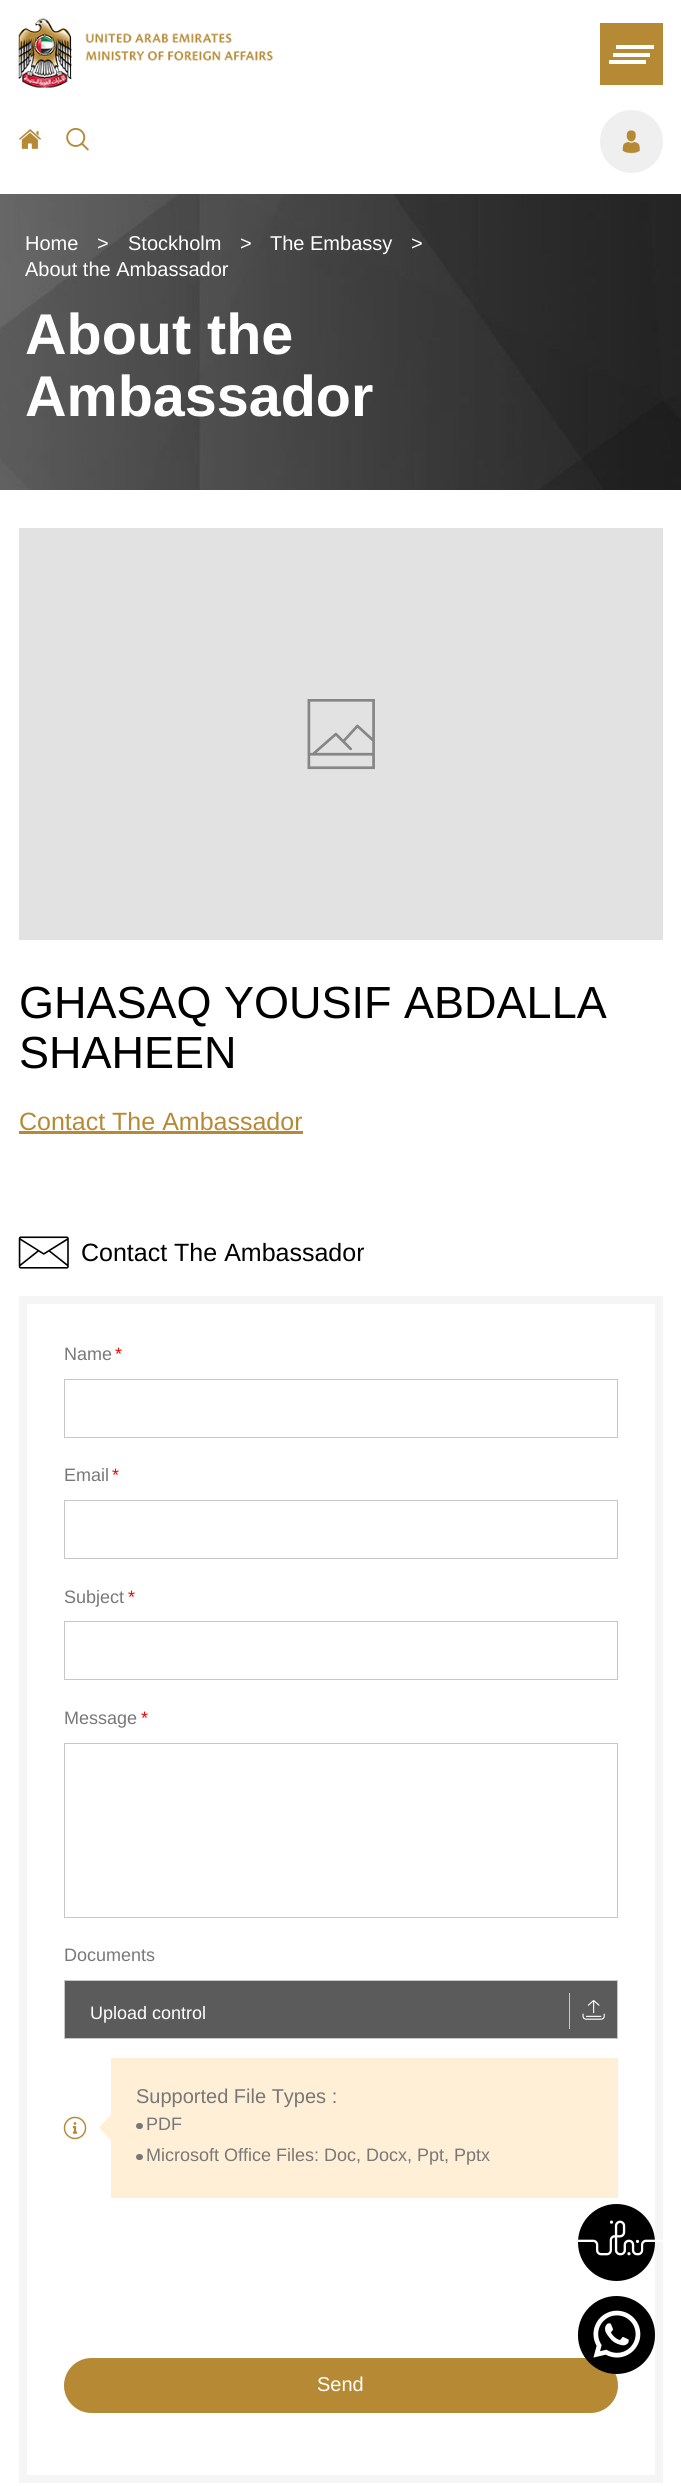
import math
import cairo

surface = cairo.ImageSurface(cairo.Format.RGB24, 681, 2486)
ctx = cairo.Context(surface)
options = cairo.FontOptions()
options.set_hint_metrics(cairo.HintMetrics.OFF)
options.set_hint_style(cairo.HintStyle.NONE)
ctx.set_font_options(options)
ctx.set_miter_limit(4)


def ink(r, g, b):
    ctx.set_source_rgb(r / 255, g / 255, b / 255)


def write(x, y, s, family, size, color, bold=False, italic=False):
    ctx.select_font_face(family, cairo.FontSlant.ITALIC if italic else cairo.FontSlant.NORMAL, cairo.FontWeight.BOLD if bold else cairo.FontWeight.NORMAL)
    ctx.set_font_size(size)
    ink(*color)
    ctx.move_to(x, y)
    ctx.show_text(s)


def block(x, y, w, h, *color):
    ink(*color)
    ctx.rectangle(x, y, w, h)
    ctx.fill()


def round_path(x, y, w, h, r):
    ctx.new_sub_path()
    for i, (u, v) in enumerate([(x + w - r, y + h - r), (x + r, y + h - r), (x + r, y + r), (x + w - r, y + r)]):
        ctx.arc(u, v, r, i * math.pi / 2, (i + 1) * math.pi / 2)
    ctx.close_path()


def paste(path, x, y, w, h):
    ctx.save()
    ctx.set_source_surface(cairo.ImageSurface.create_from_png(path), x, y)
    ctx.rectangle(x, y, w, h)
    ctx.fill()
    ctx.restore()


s1 = dict(family="Liberation Sans", size=20, color=(255, 255, 255))
s2 = dict(family="Liberation Sans", size=57.5, color=(255, 255, 255), bold=True)
s3 = dict(family="Liberation Sans", size=45, color=(0, 0, 0))
s4 = dict(family="Liberation Sans", size=25, color=(182, 138, 53))
s5 = dict(family="Liberation Sans", size=25, color=(0, 0, 0))
s6 = dict(family="Liberation Sans", size=18, color=(120, 120, 120))
s7 = dict(family="Liberation Sans", size=18, color=(255, 0, 0))
s8 = dict(family="Liberation Sans", size=18, color=(255, 255, 255))
s9 = dict(family="Liberation Sans", size=20, color=(120, 120, 120))

ink(255, 255, 255)
ctx.paint()
paste("pic1.png", 18, 18, 255, 70)
block(600, 23, 63, 62, 182, 138, 53)
block(613, 53, 37, 4, 255, 255, 255)
block(616, 45, 38, 4, 255, 255, 255)
block(609, 60, 37, 4, 255, 255, 255)
paste("pic2.png", 18, 129, 24, 20)
paste("pic3.png", 66, 128, 23, 23)
ink(239, 239, 239)
ctx.arc(631.5, 141.5, 31.5, 0, 2 * math.pi)
ctx.fill()
paste("pic4.png", 622, 130, 18, 23)
paste("pic5.png", 0, 194, 681, 296)
write(25, 250, "Home", **s1)
write(97, 250, ">", **s1)
write(128, 250, "Stockholm", **s1)
write(240, 250, ">", **s1)
write(270, 250, "The Embassy", **s1)
write(411, 250, ">", **s1)
write(25, 276, "About the Ambassador", **s1)
write(25, 354, "About the", **s2)
write(25, 416, "Ambassador", **s2)
block(19, 528, 644, 412, 226, 226, 226)
paste("pic6.png", 307, 699, 68, 71)
write(19, 1018, "GHASAQ YOUSIF ABDALLA", **s3)
write(19, 1068, "SHAHEEN", **s3)
write(19, 1130, "Contact The Ambassador", **s4)
block(19, 1131, 284, 3, 182, 138, 53)
paste("pic7.png", 18, 1236, 51, 33)
write(81, 1261, "Contact The Ambassador", **s5)
ctx.rectangle(23, 1300, 636, 1179)
ink(245, 245, 245)
ctx.set_line_width(8)
ctx.stroke()
write(64, 1360, "Name", **s6)
write(115, 1360, "*", **s7)
ctx.rectangle(64.5, 1379.5, 553, 58)
ink(199, 199, 199)
ctx.set_line_width(1)
ctx.stroke()
write(64, 1481, "Email", **s6)
write(112, 1481, "*", **s7)
ctx.rectangle(64.5, 1500.5, 553, 58)
ink(199, 199, 199)
ctx.stroke()
write(64, 1603, "Subject", **s6)
write(128, 1603, "*", **s7)
ctx.rectangle(64.5, 1621.5, 553, 58)
ink(199, 199, 199)
ctx.stroke()
write(64, 1724, "Message", **s6)
write(141, 1724, "*", **s7)
ctx.rectangle(64.5, 1743.5, 553, 174)
ink(199, 199, 199)
ctx.stroke()
write(64, 1961, "Documents", **s6)
ink(91, 91, 91)
ctx.rectangle(64.5, 1980.5, 553, 58)
ctx.fill_preserve()
ink(199, 199, 199)
ctx.stroke()
write(90, 2019, "Upload control", **s8)
block(569, 1993, 1, 36, 201, 201, 201)
paste("pic8.png", 582, 2000, 23, 20)
paste("pic9.png", 63, 2116, 24, 24)
block(111, 2058, 507, 140, 255, 239, 214)
write(136, 2103, "Supported File Types :", **s9)
ink(255, 239, 214)
ctx.new_path()
ctx.move_to(111, 2115)
ctx.line_to(111, 2140)
ctx.line_to(99, 2127.5)
ctx.close_path()
ctx.fill()
ink(120, 120, 120)
round_path(136, 2123, 7, 6, 3)
ctx.fill()
write(146, 2130, "PDF", **s6)
round_path(136, 2154, 7, 6, 3)
ctx.fill()
write(146, 2161, "Microsoft Office Files: Doc, Docx, Ppt, Pptx", **s6)
ink(182, 138, 53)
round_path(64, 2358, 554, 55, 27.5)
ctx.fill()
write(317, 2391, "Send", **s1)
ink(0, 0, 0)
ctx.new_path()
ctx.arc(616.5, 2242.5, 38.5, 0, 2 * math.pi)
ctx.fill()
paste("pic10.png", 578, 2220, 85, 36)
round_path(578, 2296, 77, 78, 38.5)
ctx.fill()
paste("pic11.png", 593, 2310, 48, 48)
surface.write_to_png("screenshot.png")
